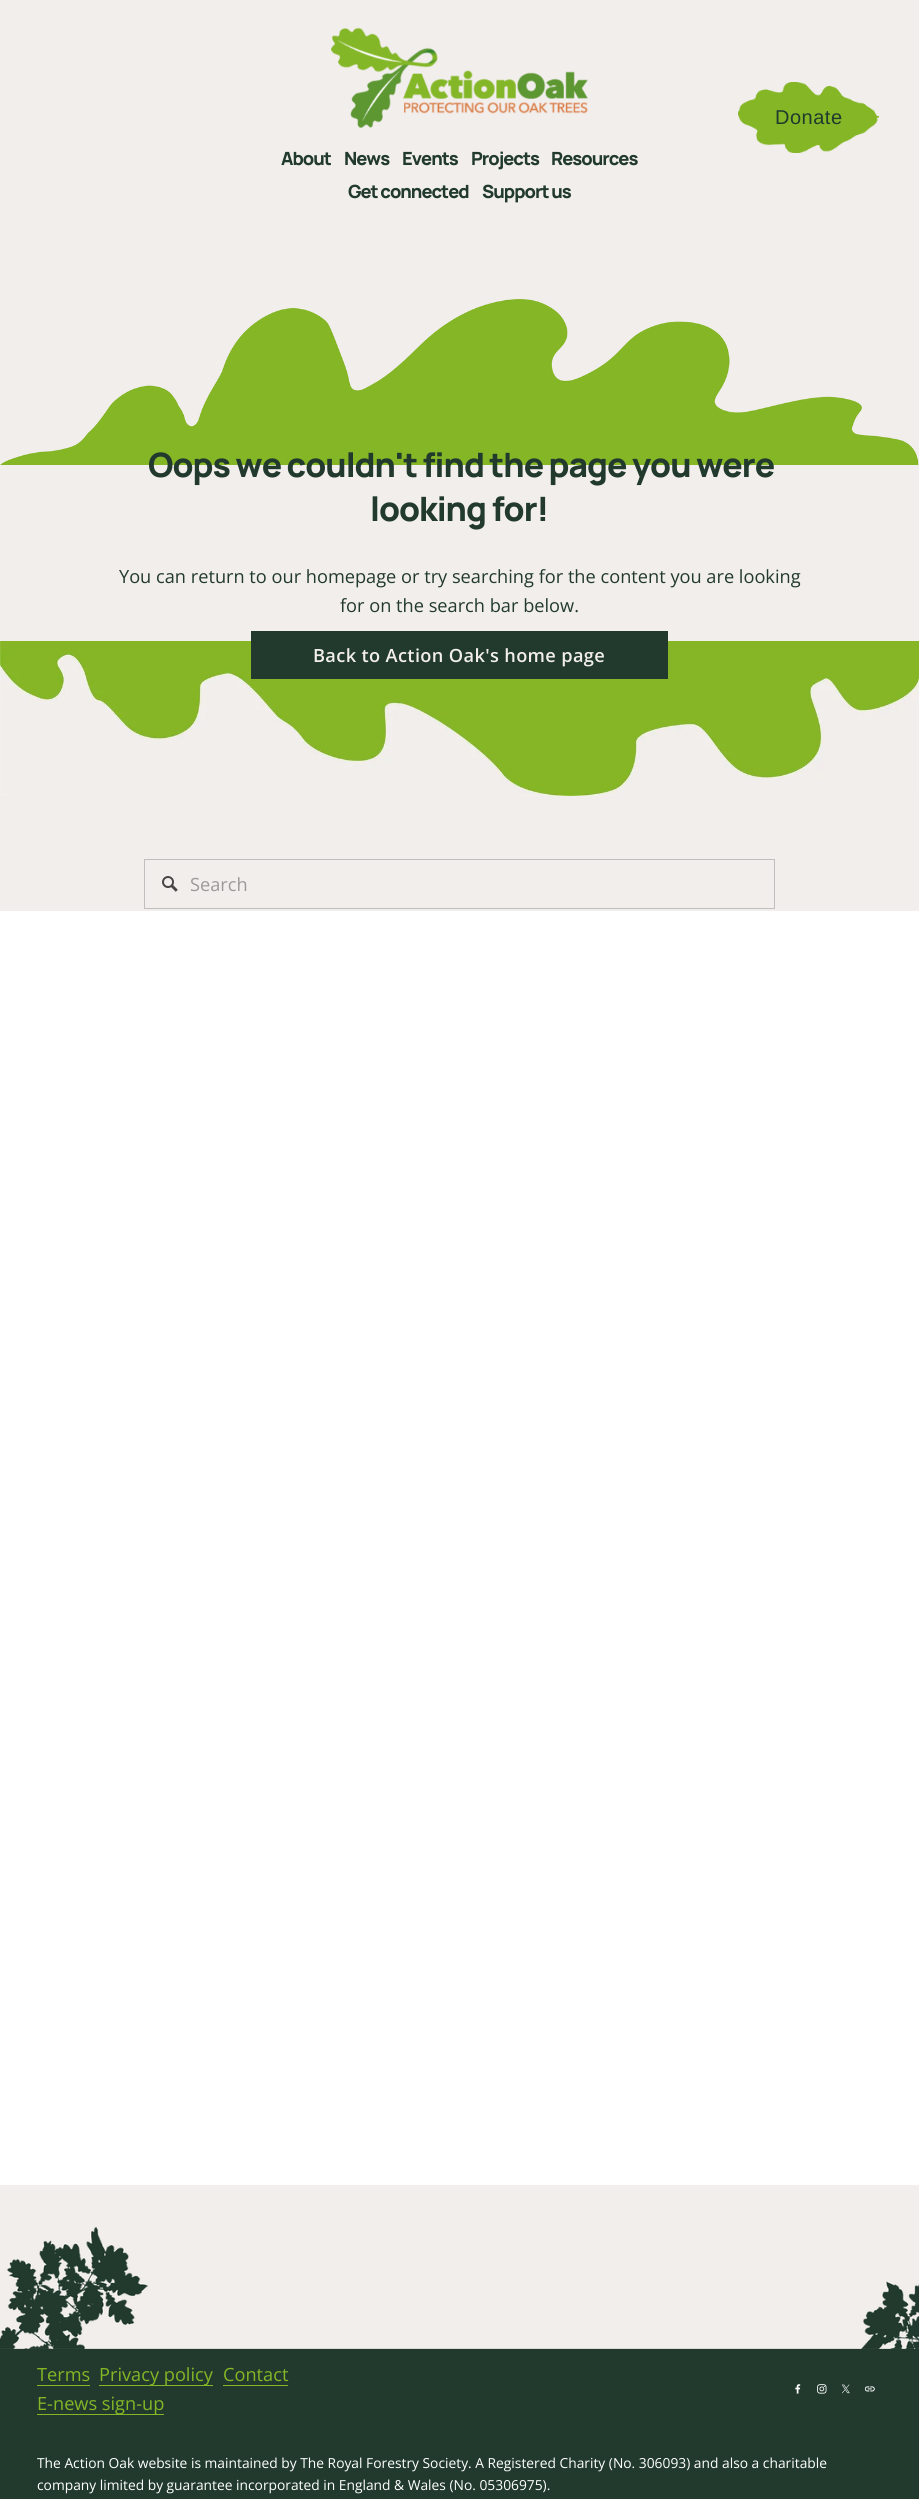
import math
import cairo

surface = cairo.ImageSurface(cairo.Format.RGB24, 919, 2499)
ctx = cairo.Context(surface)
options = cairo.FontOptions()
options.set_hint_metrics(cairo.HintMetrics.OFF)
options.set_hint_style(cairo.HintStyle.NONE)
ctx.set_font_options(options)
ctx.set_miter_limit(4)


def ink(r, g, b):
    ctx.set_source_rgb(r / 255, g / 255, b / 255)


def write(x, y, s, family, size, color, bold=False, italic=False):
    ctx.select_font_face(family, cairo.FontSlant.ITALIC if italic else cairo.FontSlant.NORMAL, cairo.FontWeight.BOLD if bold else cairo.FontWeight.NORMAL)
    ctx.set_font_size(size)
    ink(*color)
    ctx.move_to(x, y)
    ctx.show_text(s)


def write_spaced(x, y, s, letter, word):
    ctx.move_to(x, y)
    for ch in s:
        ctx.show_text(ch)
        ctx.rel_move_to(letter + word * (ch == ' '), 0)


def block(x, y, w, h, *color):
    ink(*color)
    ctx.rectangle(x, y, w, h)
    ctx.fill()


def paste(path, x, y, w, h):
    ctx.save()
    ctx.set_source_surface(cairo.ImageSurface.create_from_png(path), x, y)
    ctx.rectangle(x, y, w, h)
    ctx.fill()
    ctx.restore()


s1 = dict(family="Open Sans", size=18.2, color=(33, 58, 45))
s2 = dict(family="Open Sans", size=18.2, color=(155, 153, 153))
s3 = dict(family="Open Sans", size=18.2, color=(132, 182, 38))
s4 = dict(family="Open Sans", size=13.8, color=(255, 255, 255))

ink(255, 255, 255)
ctx.paint()
block(0, 0, 919, 911, 242, 238, 236)
paste("pic1.png", 738, 82, 141, 71)
ctx.select_font_face("Liberation Sans")
ctx.set_font_size(20)
ink(33, 58, 45)
write_spaced(775, 124, "Donate", 0.5, 0)
paste("pic2.png", 331, 27, 257, 101)
ctx.select_font_face("Manrope ExtraBold")
ctx.set_font_size(18.2)
write_spaced(281, 165, "About", -1, 0)
write_spaced(344, 165, "News", -1, 0)
write_spaced(402, 165, "Events", -1, 0)
write_spaced(471, 165, "Projects", -1, 0)
write_spaced(551, 165, "Resources", -1, 0)
write_spaced(348, 198, "Get connected", -1, 0)
write_spaced(482, 198, "Support us", -1, 0)
paste("pic3.png", 0, 299, 919, 166)
ctx.set_font_size(33.6)
write_spaced(148, 477, "Oops we couldn't find the page you were", -1, -0.25)
write_spaced(370, 521, "looking for!", -1, 0)
write(119, 583, "You can return to our homepage or try searching for the content you are looking", **s1)
write(340, 612, "for on the search bar below.", **s1)
paste("pic4.png", 0, 641, 919, 155)
block(251, 631, 417, 48, 33, 58, 45)
ctx.select_font_face("Open Sans SemiBold")
ink(242, 238, 236)
write_spaced(313, 662, "Back to Action Oak's home page", 0.35, 0)
paste("pic5.png", 162, 876, 16, 16)
ctx.rectangle(144.5, 859.5, 630, 49)
ink(192, 190, 190)
ctx.set_line_width(1)
ctx.stroke()
write(190, 891, "Search", **s2)
block(0, 2348, 919, 151, 33, 58, 45)
paste("pic6.png", 0, 2185, 919, 164)
write(37, 2381, "Terms", **s3)
block(37, 2385, 53, 1, 132, 182, 38)
block(99, 2385, 114, 1, 132, 182, 38)
write(99, 2381, "Privacy policy", **s3)
write(223, 2381, "Contact", **s3)
block(223, 2385, 65, 1, 132, 182, 38)
block(37, 2414, 127, 1, 132, 182, 38)
write(37, 2410, "E-news sign-up", **s3)
paste("pic7.png", 795, 2384, 6, 10)
paste("pic8.png", 817, 2384, 10, 10)
paste("pic9.png", 841, 2384, 9, 10)
paste("pic10.png", 865, 2386, 10, 6)
write(37, 2468, "The Action Oak website is maintained by The Royal Forestry Society. A Registered Charity (No. 306093) and also a charitable", **s4)
write(37, 2490, "company limited by guarantee incorporated in England & Wales (No. 05306975).", **s4)
surface.write_to_png("screenshot.png")
